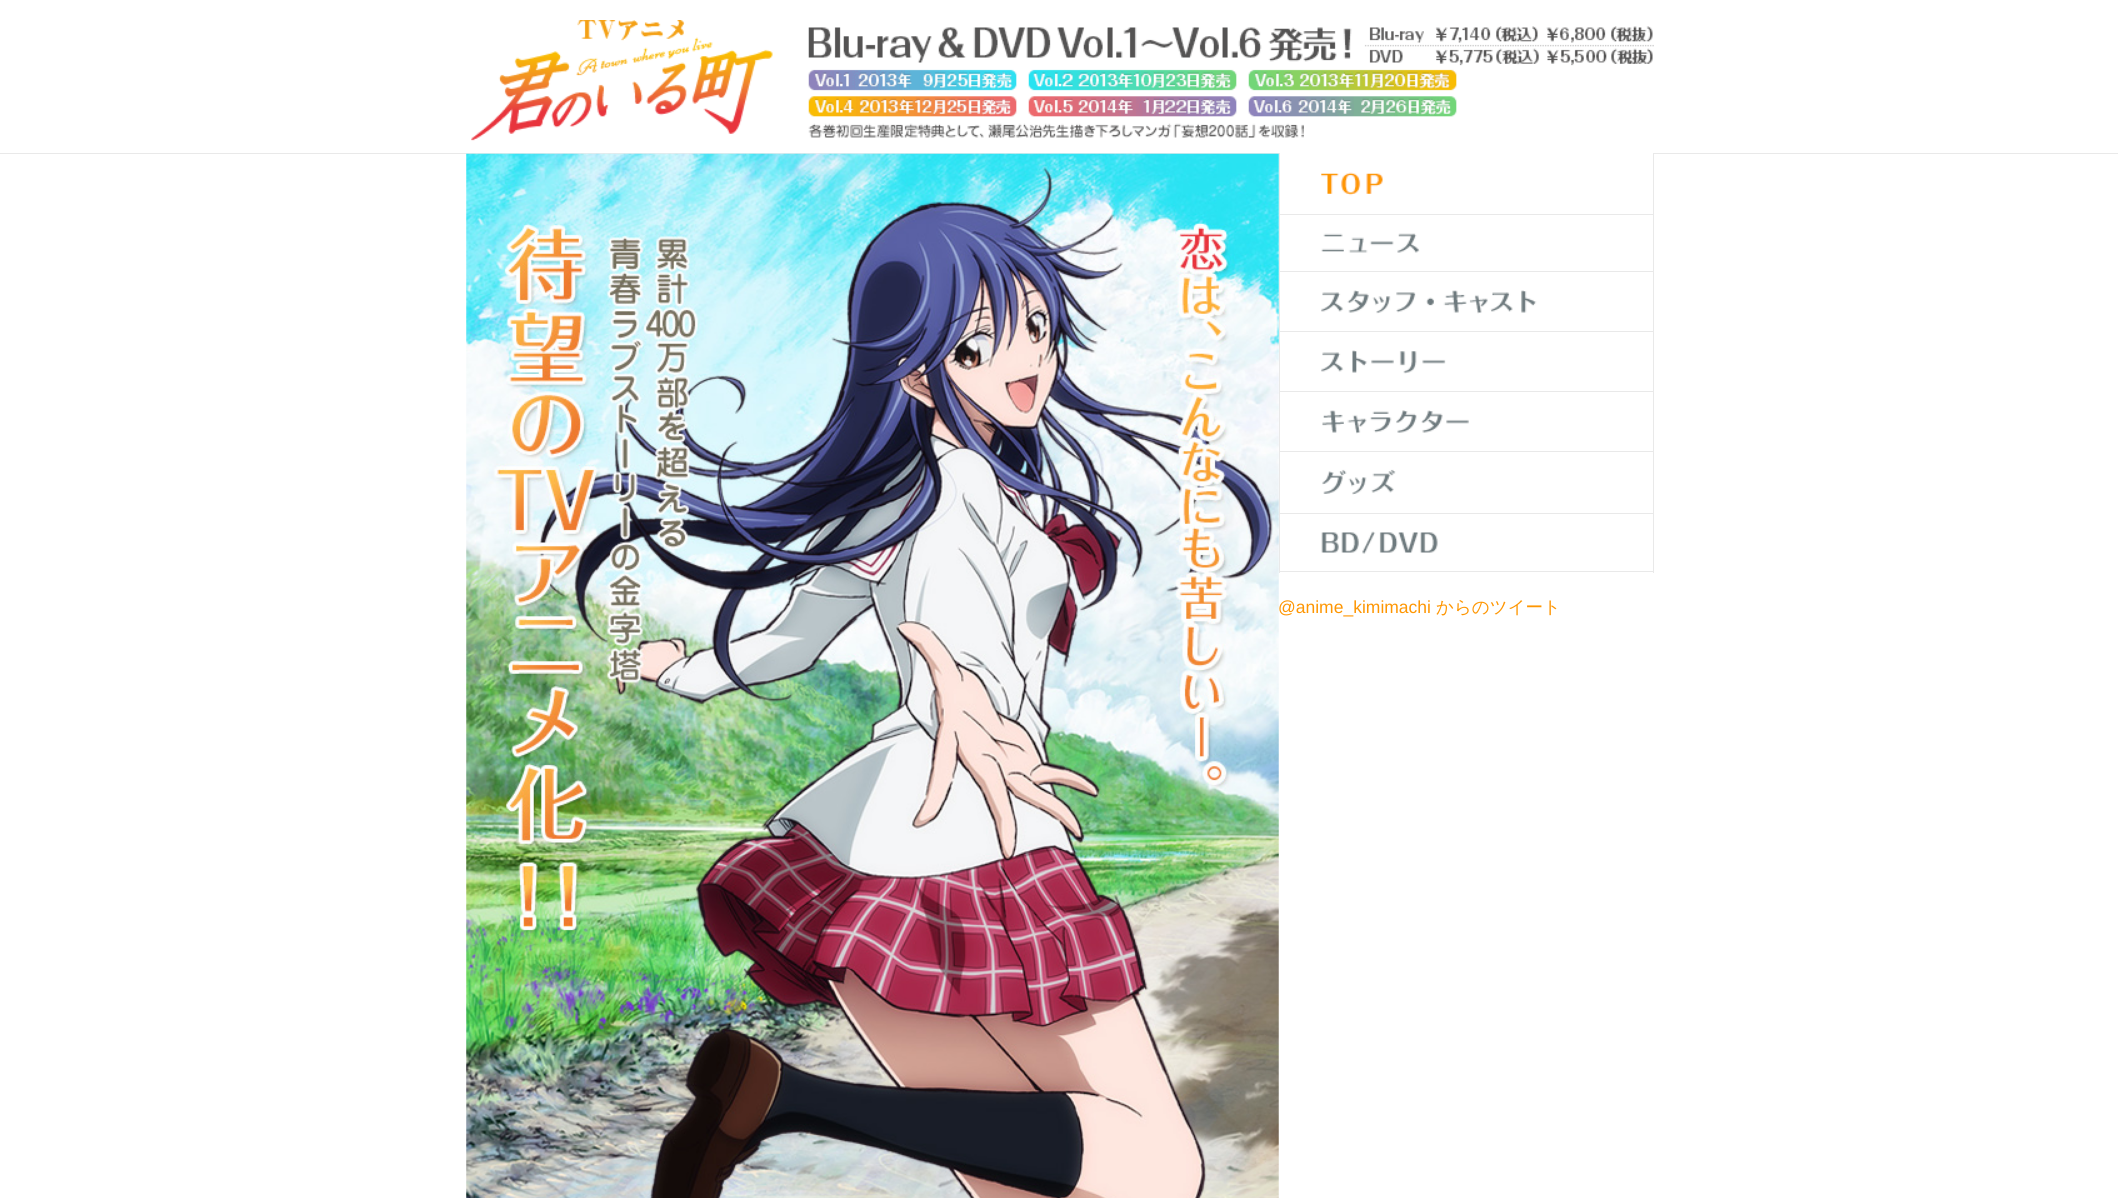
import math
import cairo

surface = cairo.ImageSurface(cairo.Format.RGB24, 2118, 1198)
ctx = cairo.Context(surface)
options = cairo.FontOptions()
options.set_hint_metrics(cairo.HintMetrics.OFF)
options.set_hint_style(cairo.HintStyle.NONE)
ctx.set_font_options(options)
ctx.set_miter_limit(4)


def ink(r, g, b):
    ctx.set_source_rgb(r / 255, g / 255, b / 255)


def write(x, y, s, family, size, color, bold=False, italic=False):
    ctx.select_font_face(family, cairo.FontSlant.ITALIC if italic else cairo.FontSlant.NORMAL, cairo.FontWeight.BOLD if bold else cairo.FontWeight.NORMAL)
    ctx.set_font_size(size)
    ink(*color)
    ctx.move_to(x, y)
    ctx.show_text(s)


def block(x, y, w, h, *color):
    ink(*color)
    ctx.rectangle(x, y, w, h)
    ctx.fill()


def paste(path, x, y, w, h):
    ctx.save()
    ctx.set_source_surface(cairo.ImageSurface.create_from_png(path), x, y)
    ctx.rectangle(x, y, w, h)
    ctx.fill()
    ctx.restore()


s1 = dict(family="Liberation Sans", size=17.5, color=(254, 150, 2))
s2 = dict(family="WenQuanYi Zen Hei Medium", size=17.5, color=(254, 150, 2))

ink(255, 255, 255)
ctx.paint()
paste("pic1.png", 471, 20, 302, 121)
paste("pic2.png", 808, 26, 846, 112)
block(0, 153, 2118, 1, 233, 233, 233)
paste("pic3.png", 466, 153, 813, 1045)
block(1280, 153, 373, 1, 255, 255, 255)
block(1653, 153, 1, 420, 233, 233, 233)
block(1279, 571, 375, 1, 233, 233, 233)
block(1279, 153, 1, 420, 233, 233, 233)
block(1280, 214, 373, 1, 233, 233, 233)
paste("pic4.png", 1321, 172, 62, 24)
block(1280, 271, 373, 1, 233, 233, 233)
paste("pic5.png", 1321, 233, 99, 20)
block(1280, 331, 373, 1, 233, 233, 233)
paste("pic6.png", 1321, 290, 216, 24)
block(1280, 391, 373, 1, 233, 233, 233)
paste("pic7.png", 1321, 350, 125, 24)
block(1280, 451, 373, 1, 233, 233, 233)
paste("pic8.png", 1322, 410, 147, 24)
block(1280, 513, 373, 1, 233, 233, 233)
paste("pic9.png", 1322, 469, 74, 26)
paste("pic10.png", 1321, 531, 117, 23)
write(1278, 613, "@anime_kimimachi", **s1)
write(1436, 613, "からのツイート", **s2)
surface.write_to_png("screenshot.png")
